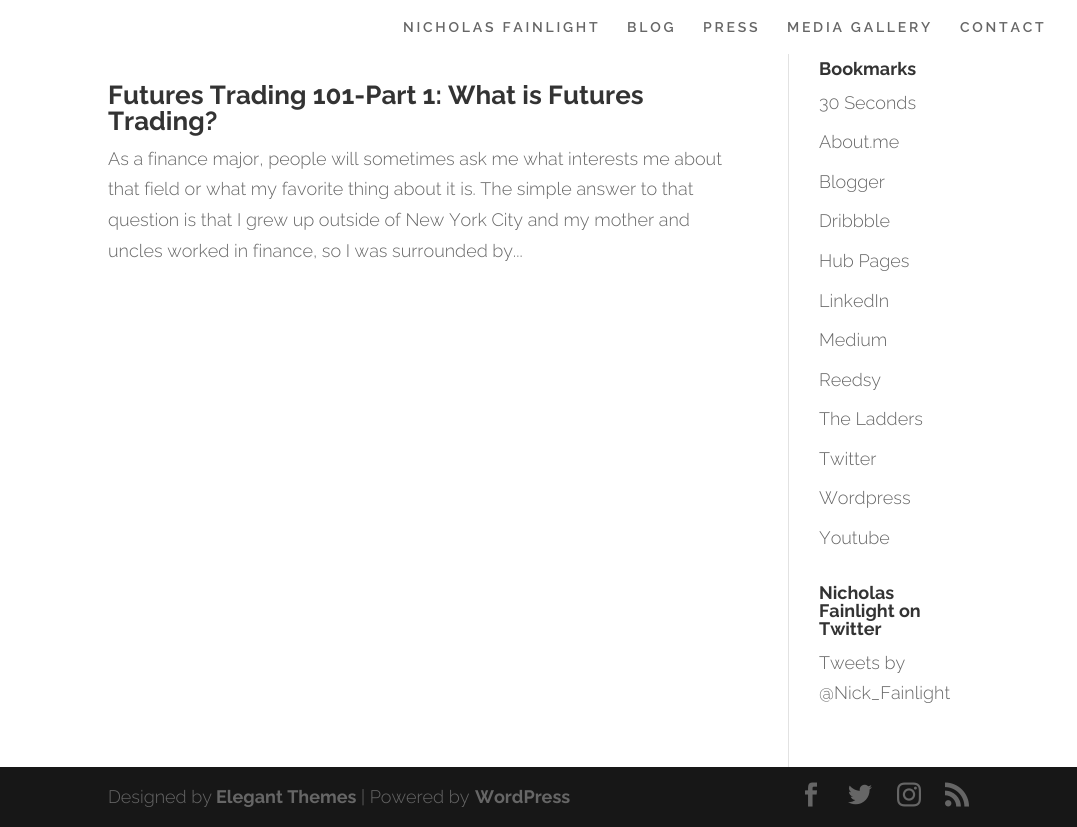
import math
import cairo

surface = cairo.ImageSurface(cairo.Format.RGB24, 1077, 827)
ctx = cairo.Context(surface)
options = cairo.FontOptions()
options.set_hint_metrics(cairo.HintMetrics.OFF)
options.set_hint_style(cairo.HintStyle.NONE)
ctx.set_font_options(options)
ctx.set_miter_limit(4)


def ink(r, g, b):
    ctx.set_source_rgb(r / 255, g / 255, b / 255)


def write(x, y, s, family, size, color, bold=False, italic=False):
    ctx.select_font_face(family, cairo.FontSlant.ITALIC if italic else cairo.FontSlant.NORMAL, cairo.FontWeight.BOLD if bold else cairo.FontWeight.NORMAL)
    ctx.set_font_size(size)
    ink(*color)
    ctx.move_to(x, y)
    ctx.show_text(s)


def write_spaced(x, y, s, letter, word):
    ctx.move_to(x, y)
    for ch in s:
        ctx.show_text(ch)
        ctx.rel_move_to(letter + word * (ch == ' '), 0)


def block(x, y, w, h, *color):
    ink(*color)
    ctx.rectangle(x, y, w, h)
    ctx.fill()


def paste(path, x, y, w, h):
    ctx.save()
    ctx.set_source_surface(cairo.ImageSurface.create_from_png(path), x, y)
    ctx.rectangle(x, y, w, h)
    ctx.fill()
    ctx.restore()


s1 = dict(family="Raleway", size=26, color=(51, 51, 51), bold=True)
s2 = dict(family="Raleway Light", size=18, color=(102, 102, 102))
s3 = dict(family="Raleway", size=18, color=(51, 51, 51), bold=True)
s4 = dict(family="Raleway", size=18, color=(102, 102, 102), bold=True)

ink(255, 255, 255)
ctx.paint()
ctx.select_font_face("Raleway SemiBold")
ctx.set_font_size(14)
ink(102, 102, 102)
write_spaced(403, 32, "NICHOLAS FAINLIGHT", 2.75, 0)
write_spaced(627, 32, "BLOG", 2.75, 0)
write_spaced(703, 32, "PRESS", 2.75, 0)
write_spaced(787, 32, "MEDIA GALLERY", 2.75, 0)
write_spaced(960, 32, "CONTACT", 2.75, 0)
block(788, 54, 1, 713, 226, 226, 226)
write(108, 104, "Futures Trading 101-Part 1: What is Futures", **s1)
write(108, 130, "Trading?", **s1)
write(108, 165, "As a finance major, people will sometimes ask me what interests me about", **s2)
write(108, 195, "that field or what my favorite thing about it is. The simple answer to that", **s2)
write(108, 226, "question is that I grew up outside of New York City and my mother and", **s2)
write(108, 257, "uncles worked in finance, so I was surrounded by...", **s2)
write(819, 75, "Bookmarks", **s3)
write(819, 109, "30 Seconds", **s2)
write(819, 148, "About.me", **s2)
write(819, 188, "Blogger", **s2)
write(819, 227, "Dribbble", **s2)
write(819, 267, "Hub Pages", **s2)
write(819, 307, "LinkedIn", **s2)
write(819, 346, "Medium", **s2)
write(819, 386, "Reedsy", **s2)
write(819, 425, "The Ladders", **s2)
write(819, 465, "Twitter", **s2)
write(819, 504, "Wordpress", **s2)
write(819, 544, "Youtube", **s2)
write(819, 599, "Nicholas", **s3)
write(819, 617, "Fainlight on", **s3)
write(819, 635, "Twitter", **s3)
write(819, 669, "Tweets by", **s2)
write(819, 699, "@Nick_Fainlight", **s2)
block(0, 767, 1077, 60, 23, 23, 23)
write(108, 803, "Designed by", **s2)
write(216, 803, "Elegant Themes", **s4)
write(361, 803, "| Powered by", **s2)
write(475, 803, "WordPress", **s4)
paste("pic1.png", 805, 782, 12, 25)
paste("pic2.png", 848, 784, 24, 21)
paste("pic3.png", 897, 782, 24, 25)
paste("pic4.png", 945, 782, 24, 25)
surface.write_to_png("screenshot.png")
